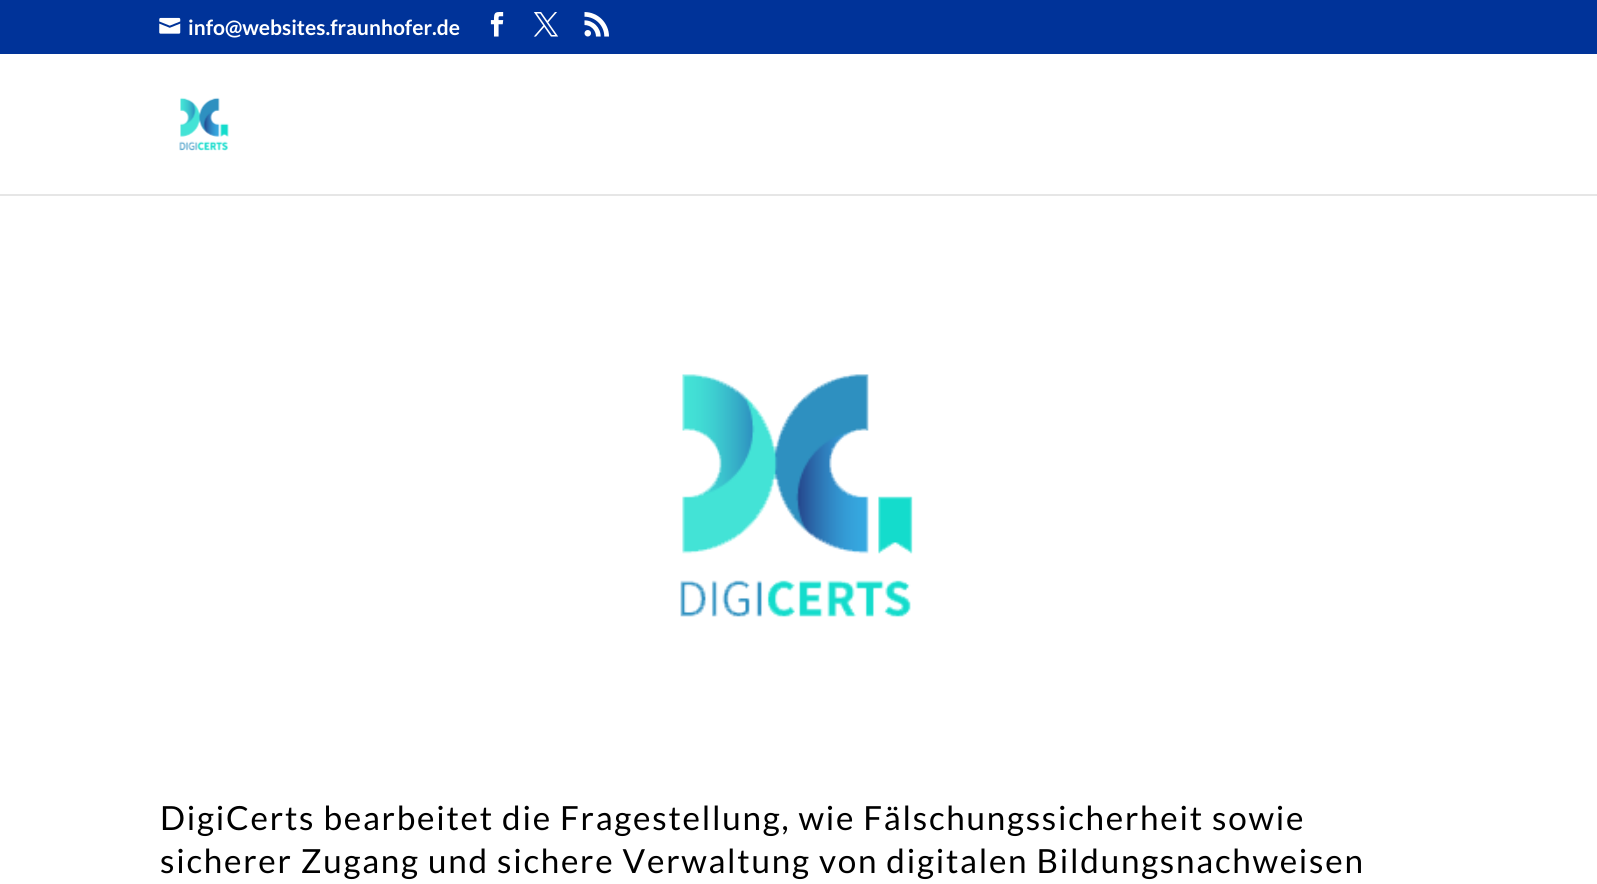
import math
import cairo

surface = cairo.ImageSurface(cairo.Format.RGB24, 1597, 884)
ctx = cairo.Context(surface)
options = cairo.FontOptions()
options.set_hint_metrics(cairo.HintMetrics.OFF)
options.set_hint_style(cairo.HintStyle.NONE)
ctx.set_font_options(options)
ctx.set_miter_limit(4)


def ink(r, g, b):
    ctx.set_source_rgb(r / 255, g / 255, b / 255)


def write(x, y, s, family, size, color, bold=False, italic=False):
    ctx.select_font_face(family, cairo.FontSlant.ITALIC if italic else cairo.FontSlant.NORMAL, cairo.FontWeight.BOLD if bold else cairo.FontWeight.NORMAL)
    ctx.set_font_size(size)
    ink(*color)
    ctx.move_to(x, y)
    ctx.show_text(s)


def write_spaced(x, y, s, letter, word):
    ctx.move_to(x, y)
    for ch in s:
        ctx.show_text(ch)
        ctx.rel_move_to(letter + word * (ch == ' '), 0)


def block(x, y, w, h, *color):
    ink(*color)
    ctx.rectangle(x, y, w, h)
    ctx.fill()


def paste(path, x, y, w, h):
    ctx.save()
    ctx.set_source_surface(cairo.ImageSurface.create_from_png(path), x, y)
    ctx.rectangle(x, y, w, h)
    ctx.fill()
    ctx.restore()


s1 = dict(family="Lato", size=21, color=(255, 255, 255), bold=True)

ink(255, 255, 255)
ctx.paint()
block(0, 0, 1597, 54, 0, 51, 153)
paste("pic1.png", 159, 17, 22, 17)
write(188, 35, "info@websites.fraunhofer.de", **s1)
paste("pic2.png", 490, 12, 14, 25)
paste("pic3.png", 533, 12, 26, 25)
paste("pic4.png", 584, 12, 25, 25)
ink(230, 230, 230)
ctx.new_path()
ctx.move_to(0, 194)
ctx.line_to(0, 196)
ctx.line_to(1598, 196)
ctx.line_to(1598, 56)
ctx.line_to(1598, 194)
ctx.close_path()
ctx.fill()
paste("pic5.png", 179, 97, 50, 54)
paste("pic6.png", 680, 374, 233, 244)
ctx.select_font_face("Lato")
ctx.set_font_size(33.25)
ink(0, 0, 0)
write_spaced(160, 830, "DigiCerts bearbeitet die Fragestellung, wie Fälschungssicherheit sowie", 1.75, 0)
write_spaced(160, 873, "sicherer Zugang und sichere Verwaltung von digitalen Bildungsnachweisen", 1.75, 0)
surface.write_to_png("screenshot.png")
